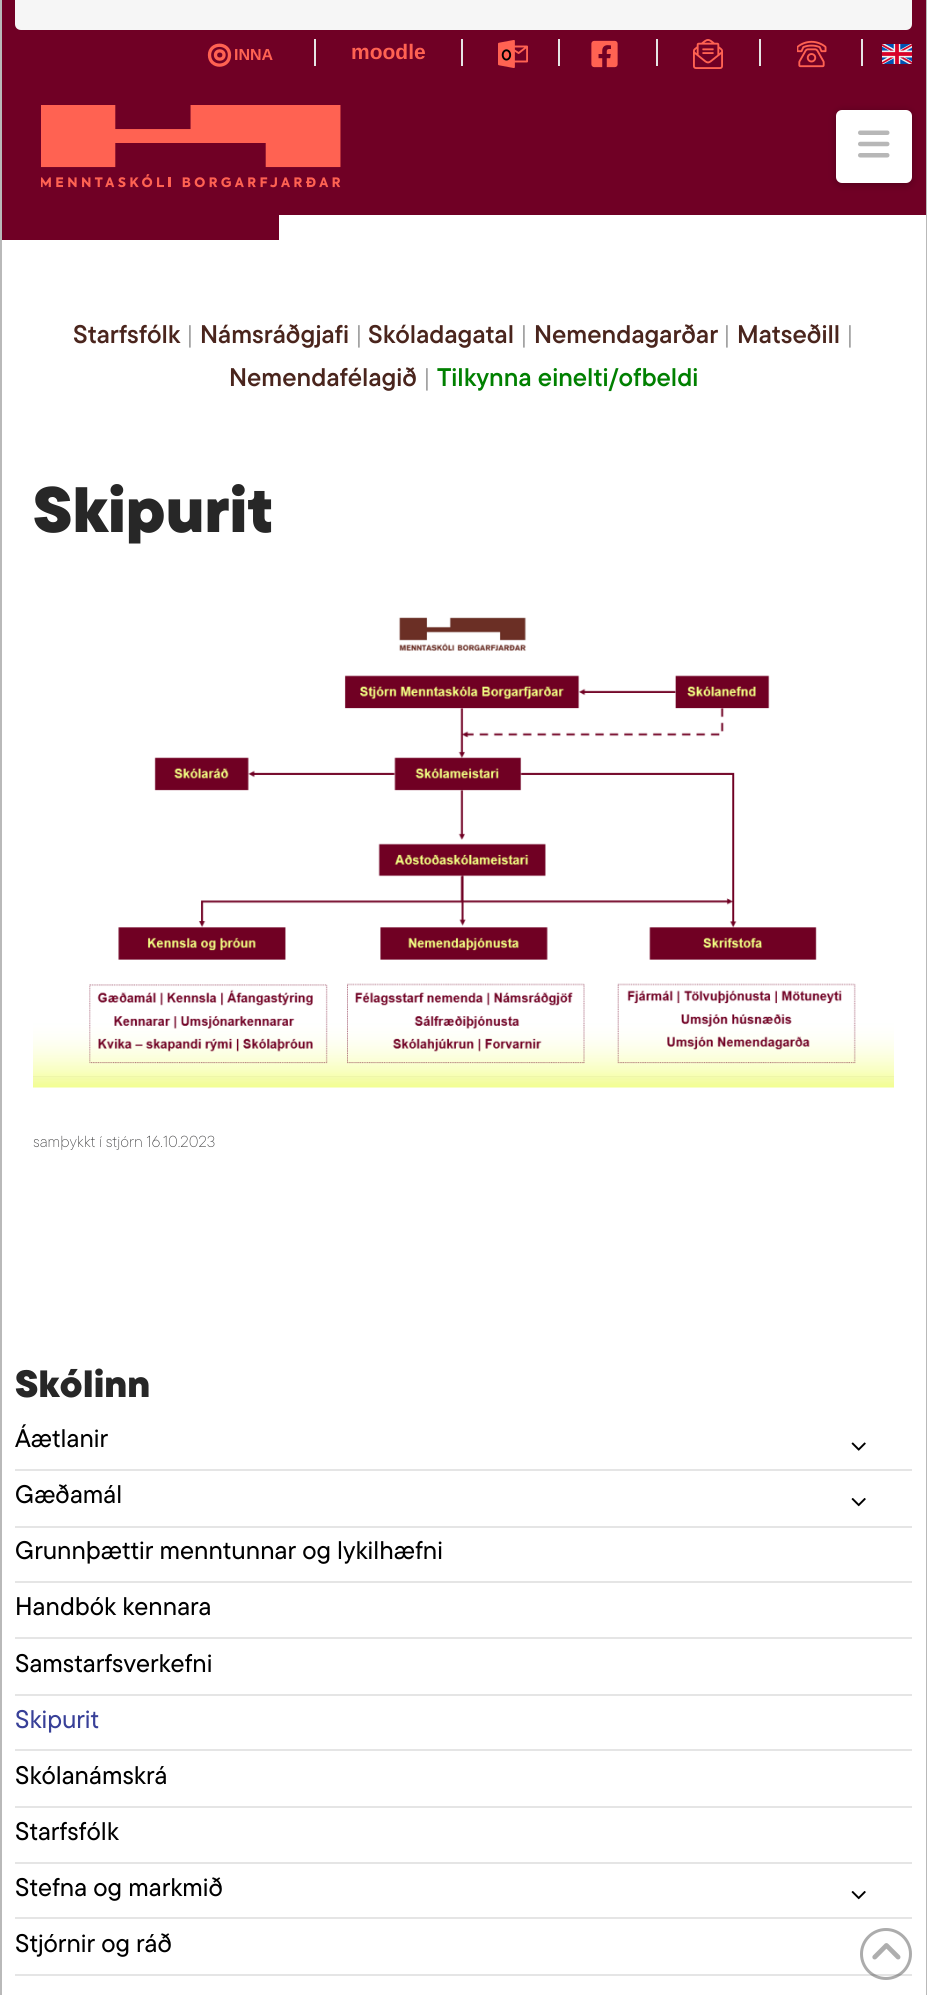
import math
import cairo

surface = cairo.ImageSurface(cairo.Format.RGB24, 927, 1995)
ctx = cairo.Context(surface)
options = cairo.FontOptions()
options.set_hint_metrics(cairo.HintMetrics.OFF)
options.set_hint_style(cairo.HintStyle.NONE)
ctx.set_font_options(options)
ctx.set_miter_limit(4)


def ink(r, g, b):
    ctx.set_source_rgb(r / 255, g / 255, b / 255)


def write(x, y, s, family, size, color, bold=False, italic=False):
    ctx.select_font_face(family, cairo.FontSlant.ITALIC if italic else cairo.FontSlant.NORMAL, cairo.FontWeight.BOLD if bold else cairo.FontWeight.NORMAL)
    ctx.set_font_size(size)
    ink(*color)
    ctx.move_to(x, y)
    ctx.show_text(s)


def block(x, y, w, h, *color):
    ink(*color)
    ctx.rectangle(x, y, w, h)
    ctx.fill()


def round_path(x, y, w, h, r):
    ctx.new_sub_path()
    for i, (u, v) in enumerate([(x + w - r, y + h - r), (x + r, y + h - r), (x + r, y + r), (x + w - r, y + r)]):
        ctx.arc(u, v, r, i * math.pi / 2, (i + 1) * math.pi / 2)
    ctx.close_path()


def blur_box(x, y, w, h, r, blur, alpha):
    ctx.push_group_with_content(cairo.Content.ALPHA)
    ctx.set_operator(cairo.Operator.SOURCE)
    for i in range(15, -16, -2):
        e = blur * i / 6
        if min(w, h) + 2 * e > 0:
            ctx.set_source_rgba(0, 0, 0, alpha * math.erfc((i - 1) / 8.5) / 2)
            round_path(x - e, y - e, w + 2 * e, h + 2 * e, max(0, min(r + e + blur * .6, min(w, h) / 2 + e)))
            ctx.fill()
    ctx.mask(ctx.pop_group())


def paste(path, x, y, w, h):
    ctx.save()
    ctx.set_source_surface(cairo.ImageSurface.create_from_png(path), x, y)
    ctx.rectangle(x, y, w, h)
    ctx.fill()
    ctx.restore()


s1 = dict(family="Liberation Sans", size=16, color=(255, 98, 82), bold=True)
s2 = dict(family="Liberation Sans", size=21, color=(255, 98, 82), bold=True)
s3 = dict(family="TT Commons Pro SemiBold", size=25.5, color=(74, 37, 29))
s4 = dict(family="TT Commons Pro ExtraLight", size=25.5, color=(71, 71, 72))
s5 = dict(family="TT Commons Pro SemiBold", size=25.5, color=(0, 128, 0))
s6 = dict(family="TT Commons Pro Black", size=64, color=(39, 39, 39))
s7 = dict(family="TT Commons Pro ExtraLight", size=16, color=(71, 71, 72))
s8 = dict(family="TT Commons Pro Black", size=38, color=(39, 39, 39))
s9 = dict(family="TT Commons Pro Medium", size=25.5, color=(0, 0, 0))
s10 = dict(family="TT Commons Pro Medium", size=25.5, color=(56, 64, 152))

ink(255, 255, 255)
ctx.paint()
block(926, 0, 1, 1995, 185, 185, 185)
block(0, 0, 2, 1995, 185, 185, 185)
block(2, 0, 924, 215, 112, 0, 37)
paste("pic1.png", 41, 105, 300, 83)
ink(0, 0, 0)
blur_box(836, 111, 76, 74, 6, 4, 0.25)
ink(255, 255, 255)
round_path(836, 110, 76, 73, 6)
ctx.fill()
paste("pic2.png", 858, 130, 32, 28)
block(2, 215, 277, 25, 112, 0, 37)
ink(246, 246, 246)
ctx.new_path()
ctx.move_to(15, 0)
ctx.line_to(912, 0)
ctx.line_to(912, 24)
ctx.curve_to(912, 27.5, 909.5, 30, 906, 30)
ctx.line_to(21, 30)
ctx.curve_to(17.5, 30, 15, 27.5, 15, 24)
ctx.close_path()
ctx.fill()
write(234, 60, "INNA", **s1)
ctx.new_path()
ctx.move_to(229.5, 55)
ctx.curve_to(229.5, 68.5, 209.5, 68.5, 209.5, 55)
ctx.curve_to(209.5, 42, 229.5, 42, 229.5, 55)
ctx.close_path()
ctx.move_to(224, 55)
ctx.curve_to(224, 60.5, 215.5, 60.5, 215.5, 55)
ctx.curve_to(215.5, 49.5, 224, 49.5, 224, 55)
ctx.close_path()
ctx.set_line_width(3.3)
ctx.stroke()
block(314, 39, 2, 27, 229, 229, 229)
write(351, 59, "moodle", **s2)
block(461, 39, 2, 27, 229, 229, 229)
paste("pic3.png", 498, 40, 30, 28)
block(558, 39, 2, 27, 229, 229, 229)
paste("pic4.png", 591, 40, 27, 28)
block(656, 39, 2, 27, 229, 229, 229)
paste("pic5.png", 693, 39, 30, 30)
block(759, 39, 2, 27, 229, 229, 229)
paste("pic6.png", 797, 40, 30, 28)
block(861, 39, 2, 27, 229, 229, 229)
paste("pic7.png", 882, 44, 30, 20)
write(73, 343, "Starfsfólk", **s3)
write(186, 343, "|", **s4)
write(200, 343, "Námsráðgjafi", **s3)
write(355, 343, "|", **s4)
write(368, 343, "Skóladagatal", **s3)
write(520, 343, "|", **s4)
write(534, 343, "Nemendagarðar", **s3)
write(723, 343, "|", **s4)
write(737, 343, "Matseðill", **s3)
write(846, 343, "|", **s4)
write(229, 386, "Nemendafélagið", **s3)
write(423, 386, "|", **s4)
write(437, 386, "Tilkynna einelti/ofbeldi", **s5)
write(33, 532, "Skipurit", **s6)
paste("pic8.png", 33, 617, 861, 471)
write(33, 1147, "samþykkt í stjórn 16.10.2023", **s7)
write(15, 1397, "Skólinn", **s8)
block(15, 1469, 897, 2, 229, 229, 229)
write(15, 1447, "Áætlanir", **s9)
paste("pic9.png", 851, 1442, 15, 9)
block(15, 1526, 897, 2, 229, 229, 229)
write(15, 1503, "Gæðamál", **s9)
paste("pic10.png", 851, 1498, 15, 9)
block(15, 1581, 897, 2, 229, 229, 229)
write(15, 1559, "Grunnþættir menntunnar og lykilhæfni", **s9)
block(15, 1637, 897, 2, 229, 229, 229)
write(15, 1615, "Handbók kennara", **s9)
block(15, 1694, 897, 2, 229, 229, 229)
write(15, 1672, "Samstarfsverkefni", **s9)
block(15, 1749, 897, 2, 229, 229, 229)
write(15, 1728, "Skipurit", **s10)
block(15, 1806, 897, 2, 229, 229, 229)
write(15, 1784, "Skólanámskrá", **s9)
block(15, 1862, 897, 2, 229, 229, 229)
write(15, 1840, "Starfsfólk", **s9)
block(15, 1917, 897, 2, 229, 229, 229)
write(15, 1896, "Stefna og markmið", **s9)
paste("pic10.png", 851, 1891, 15, 9)
block(15, 1974, 897, 2, 229, 229, 229)
write(15, 1952, "Stjórnir og ráð", **s9)
ctx.new_path()
ctx.arc(886, 1954, 24.5, 0, 2 * math.pi)
ctx.set_source_rgba(0.153, 0.153, 0.153, 0.38)
ctx.set_line_width(3)
ctx.stroke()
paste("pic11.png", 872, 1943, 29, 17)
surface.write_to_png("screenshot.png")
